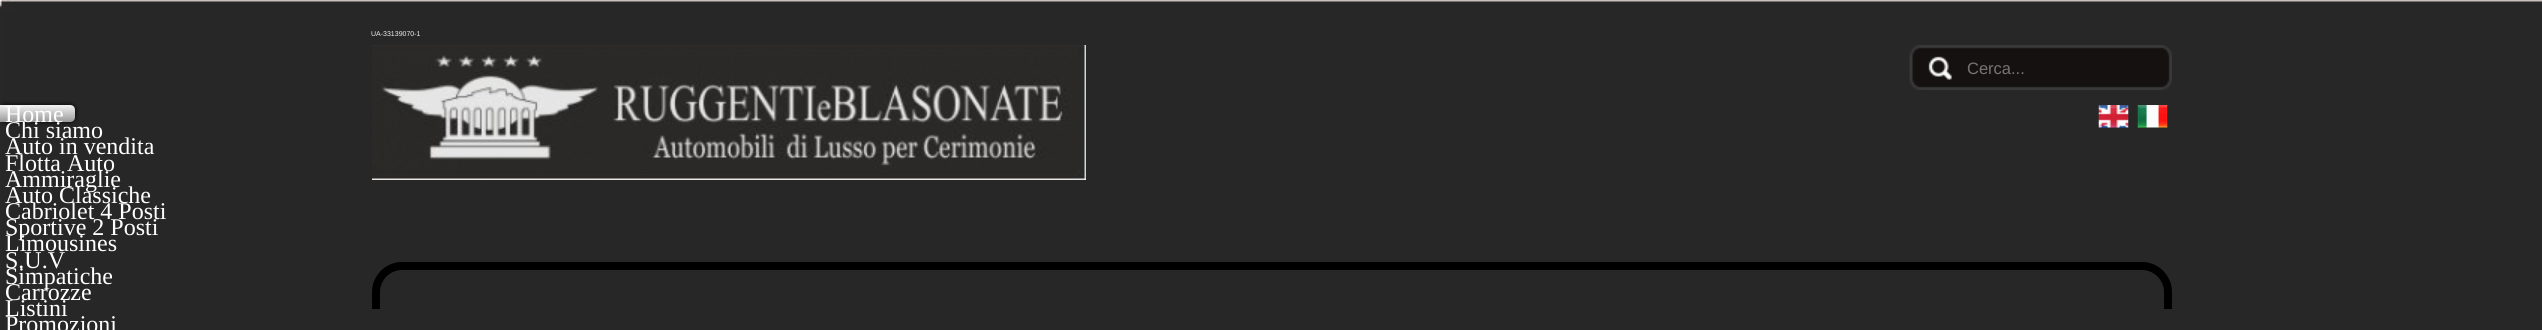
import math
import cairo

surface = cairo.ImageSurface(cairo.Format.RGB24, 2542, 330)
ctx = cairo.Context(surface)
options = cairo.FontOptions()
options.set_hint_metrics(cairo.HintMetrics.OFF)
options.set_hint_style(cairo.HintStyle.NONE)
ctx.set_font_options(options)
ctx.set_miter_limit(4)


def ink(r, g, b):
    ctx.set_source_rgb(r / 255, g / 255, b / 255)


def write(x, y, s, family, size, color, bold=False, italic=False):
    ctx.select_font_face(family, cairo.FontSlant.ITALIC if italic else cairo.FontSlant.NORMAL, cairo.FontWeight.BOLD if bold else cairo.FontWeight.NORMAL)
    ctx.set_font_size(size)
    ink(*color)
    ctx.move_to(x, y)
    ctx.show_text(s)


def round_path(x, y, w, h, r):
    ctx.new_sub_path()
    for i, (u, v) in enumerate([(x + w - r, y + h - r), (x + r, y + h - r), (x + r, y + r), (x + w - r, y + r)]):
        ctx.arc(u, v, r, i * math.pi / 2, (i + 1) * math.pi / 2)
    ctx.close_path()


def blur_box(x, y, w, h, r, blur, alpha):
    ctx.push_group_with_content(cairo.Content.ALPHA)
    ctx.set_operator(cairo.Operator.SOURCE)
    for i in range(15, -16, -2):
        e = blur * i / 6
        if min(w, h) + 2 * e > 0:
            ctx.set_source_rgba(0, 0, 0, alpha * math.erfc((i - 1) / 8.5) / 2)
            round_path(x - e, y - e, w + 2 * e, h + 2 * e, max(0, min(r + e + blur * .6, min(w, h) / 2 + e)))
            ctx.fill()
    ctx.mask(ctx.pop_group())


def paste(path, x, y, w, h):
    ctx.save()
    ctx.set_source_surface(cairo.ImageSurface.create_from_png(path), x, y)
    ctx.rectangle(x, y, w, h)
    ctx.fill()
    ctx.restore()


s1 = dict(family="Liberation Sans", size=7, color=(243, 243, 243))
s2 = dict(family="Liberation Sans", size=16.5, color=(117, 117, 117))
s3 = dict(family="Liberation Serif", size=24, color=(255, 255, 255))

ink(255, 255, 255)
ctx.paint()
paste("pic1.png", 0, 0, 2542, 330)
write(371, 36, "UA-33139070-1", **s1)
paste("pic2.png", 372, 45, 714, 135)
paste("pic3.png", 1909, 45, 263, 45)
write(1967, 74, "Cerca...", **s2)
paste("pic4.png", 2098, 105, 31, 23)
paste("pic5.png", 2137, 105, 31, 23)
ink(0, 0, 0)
blur_box(0, 105, 75, 17, 5, 2.5, 1)
gradient = cairo.LinearGradient(38, 105, 38, 122)
gradient.add_color_stop_rgba(0, 0.953, 0.953, 0.953, 1)
gradient.add_color_stop_rgba(1, 0.6, 0.6, 0.6, 1)
ctx.set_source(gradient)
ctx.new_path()
ctx.move_to(0, 105)
ctx.line_to(70, 105)
ctx.curve_to(73, 105, 75, 107, 75, 110)
ctx.line_to(75, 117)
ctx.curve_to(75, 120, 73, 122, 70, 122)
ctx.line_to(0, 122)
ctx.close_path()
ctx.fill()
write(5, 122, "Home", **s3)
write(5, 138, "Chi siamo", **s3)
write(5, 154, "Auto in vendita", **s3)
write(5, 171, "Flotta Auto", **s3)
write(5, 187, "Ammiraglie", **s3)
write(5, 203, "Auto Classiche", **s3)
write(5, 219, "Cabriolet 4 Posti", **s3)
write(5, 235, "Sportive 2 Posti", **s3)
write(5, 251, "Limousines", **s3)
write(5, 268, "S.U.V", **s3)
write(5, 284, "Simpatiche", **s3)
write(5, 300, "Carrozze", **s3)
write(5, 316, "Listini", **s3)
write(5, 332, "Promozioni", **s3)
ink(0, 0, 0)
ctx.set_fill_rule(cairo.FillRule.EVEN_ODD)
ctx.new_path()
ctx.move_to(402, 262)
ctx.line_to(2142, 262)
ctx.curve_to(2159, 262, 2172, 276, 2172, 292)
ctx.line_to(2172, 309)
ctx.line_to(372, 309)
ctx.line_to(372, 292)
ctx.curve_to(372, 276, 385, 262, 402, 262)
ctx.close_path()
ctx.move_to(402, 270)
ctx.line_to(2142, 270)
ctx.curve_to(2154, 270, 2164, 280, 2164, 292)
ctx.line_to(2164, 309)
ctx.line_to(380, 309)
ctx.line_to(380, 292)
ctx.curve_to(380, 280, 390, 270, 402, 270)
ctx.close_path()
ctx.fill()
surface.write_to_png("screenshot.png")
